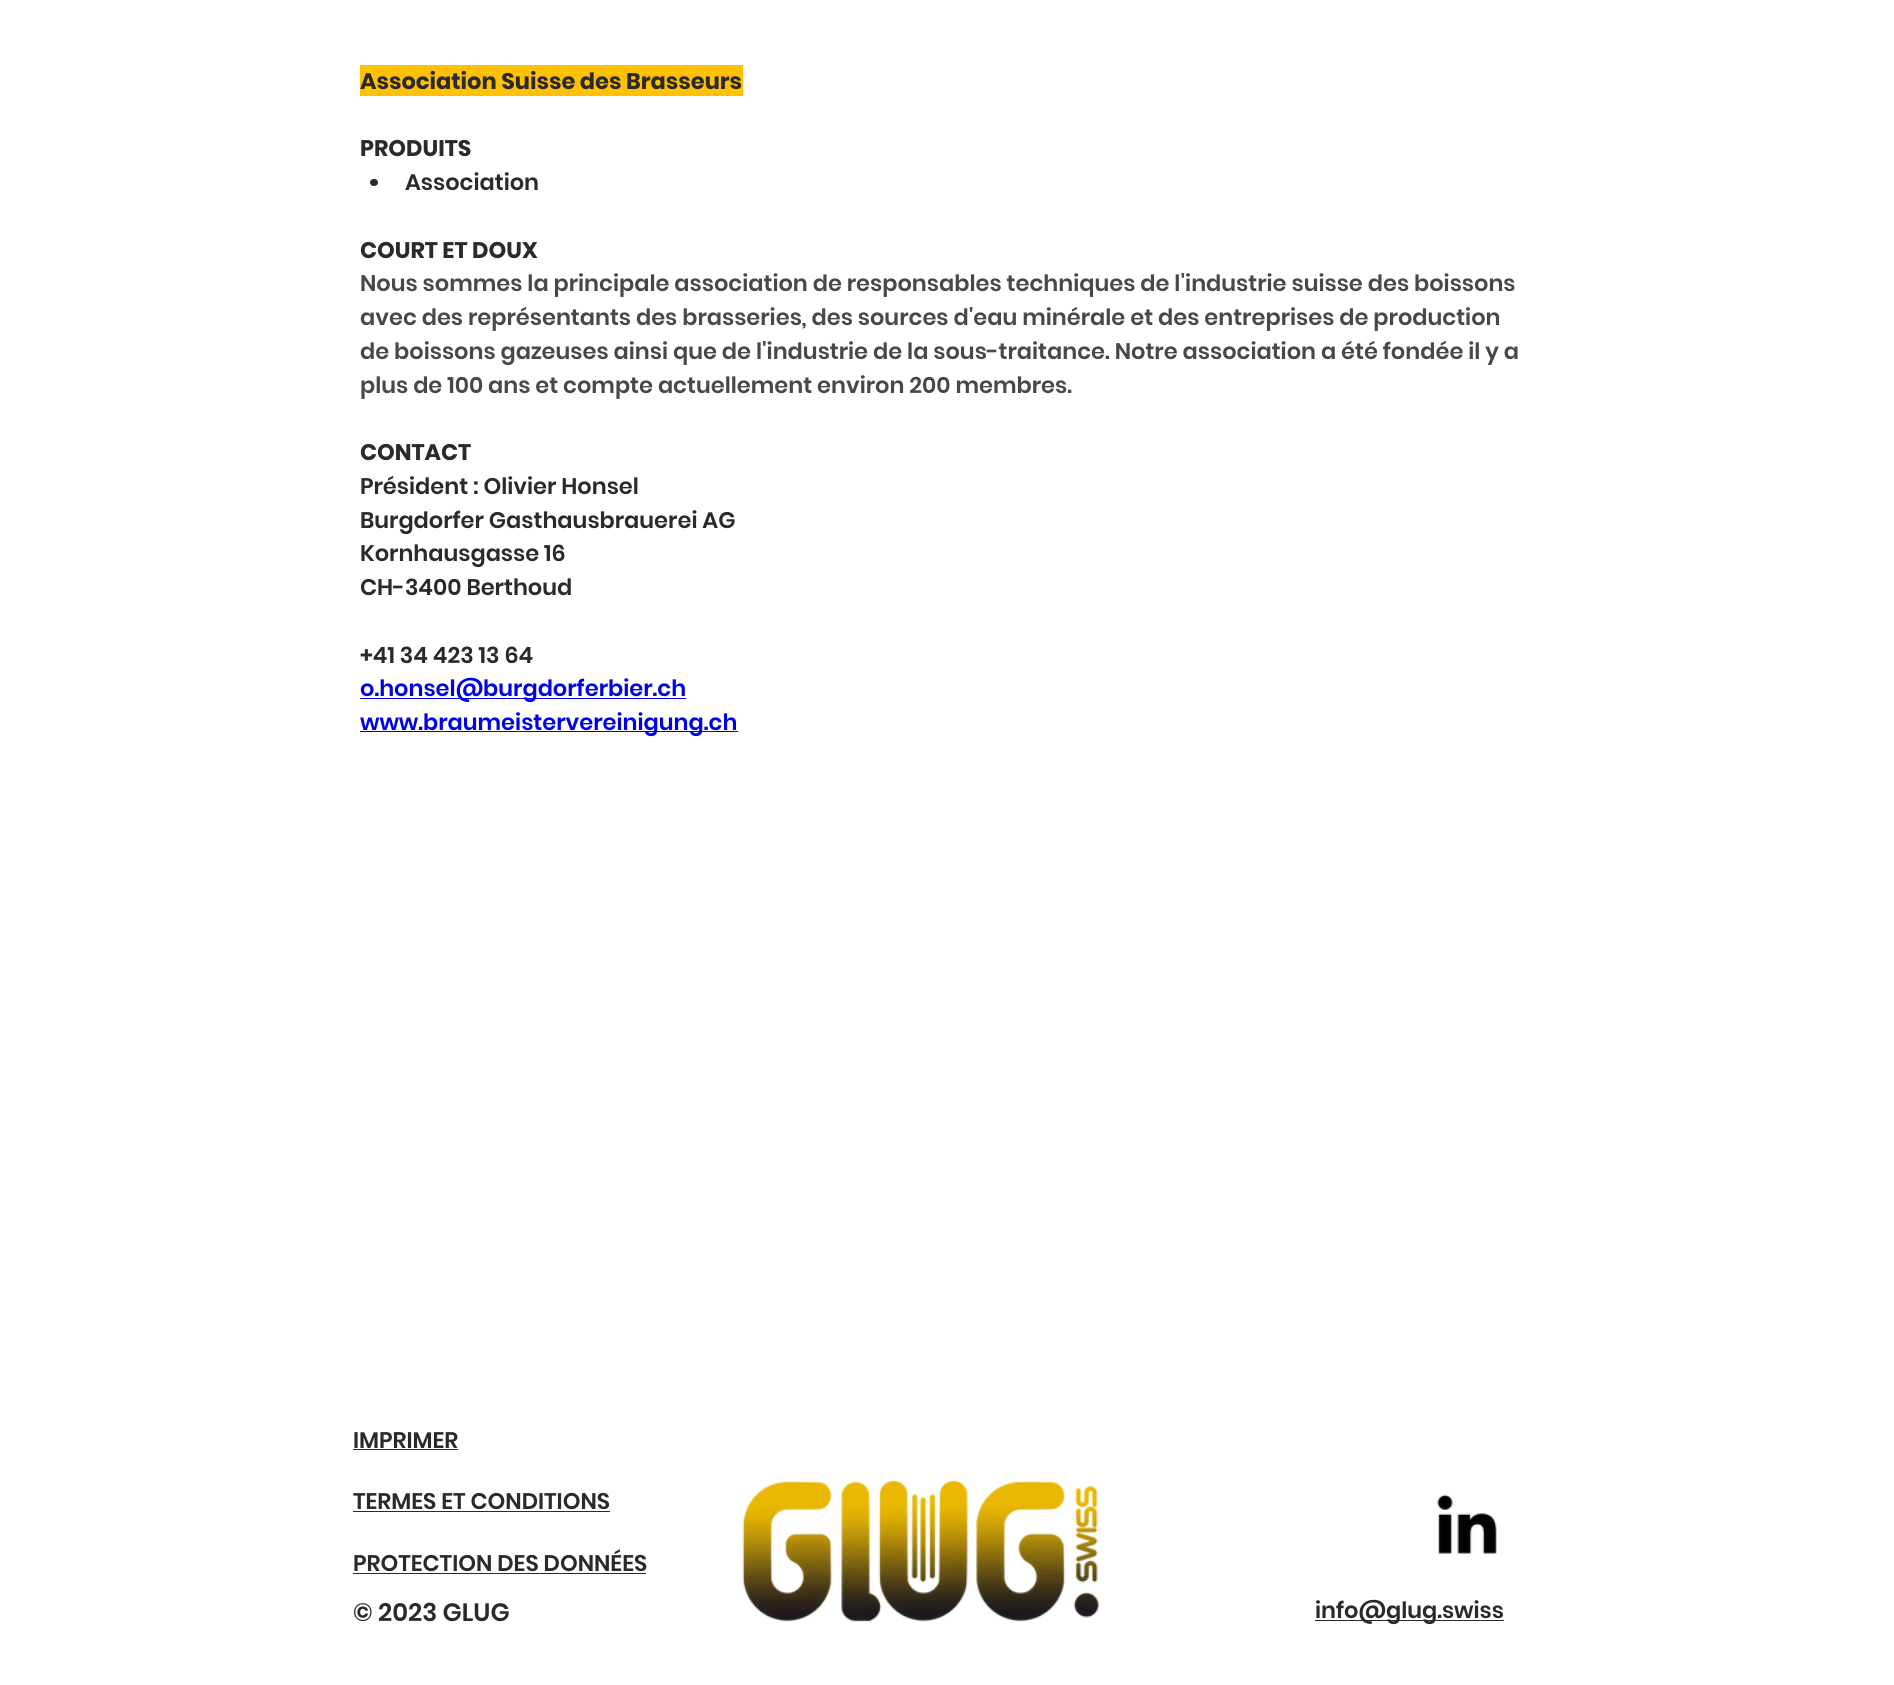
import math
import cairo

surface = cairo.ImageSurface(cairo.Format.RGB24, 1894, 1685)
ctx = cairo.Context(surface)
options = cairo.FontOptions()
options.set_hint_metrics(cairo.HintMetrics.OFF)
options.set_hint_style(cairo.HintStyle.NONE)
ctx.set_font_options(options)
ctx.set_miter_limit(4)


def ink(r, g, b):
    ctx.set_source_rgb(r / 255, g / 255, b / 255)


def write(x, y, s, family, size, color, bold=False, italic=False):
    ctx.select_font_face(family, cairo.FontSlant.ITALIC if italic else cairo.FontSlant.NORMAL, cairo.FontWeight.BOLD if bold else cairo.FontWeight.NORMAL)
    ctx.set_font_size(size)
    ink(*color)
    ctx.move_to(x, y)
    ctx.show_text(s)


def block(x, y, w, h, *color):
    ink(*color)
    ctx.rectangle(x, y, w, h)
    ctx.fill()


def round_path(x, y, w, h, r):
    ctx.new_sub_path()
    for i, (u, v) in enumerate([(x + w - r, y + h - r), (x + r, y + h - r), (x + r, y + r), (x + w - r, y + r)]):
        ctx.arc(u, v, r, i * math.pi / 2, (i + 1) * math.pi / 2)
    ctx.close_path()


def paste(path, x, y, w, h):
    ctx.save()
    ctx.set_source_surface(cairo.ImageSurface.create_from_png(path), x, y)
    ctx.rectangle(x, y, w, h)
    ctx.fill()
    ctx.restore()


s1 = dict(family="Poppins", size=22.5, color=(42, 42, 42), bold=True)
s2 = dict(family="Poppins SemiBold", size=22.5, color=(42, 42, 42))
s3 = dict(family="Poppins SemiBold", size=22.5, color=(72, 72, 72))
s4 = dict(family="Poppins SemiBold", size=22.5, color=(0, 0, 238))
s5 = dict(family="Poppins SemiBold", size=25, color=(42, 42, 42))

ink(255, 255, 255)
ctx.paint()
block(360, 65, 383, 31, 255, 193, 2)
write(360, 89, "Association Suisse des Brasseurs", **s1)
write(360, 156, "PRODUITS", **s1)
round_path(370, 179, 8, 7, 3.5)
ctx.fill()
write(405, 190, "Association", **s2)
write(360, 258, "COURT ET DOUX", **s1)
write(360, 291, "Nous sommes la principale association de responsables techniques de l'industrie suisse des boissons", **s3)
write(360, 325, "avec des représentants des brasseries, des sources d'eau minérale et des entreprises de production", **s3)
write(360, 359, "de boissons gazeuses ainsi que de l'industrie de la sous-traitance. Notre association a été fondée il y a", **s3)
write(360, 393, "plus de 100 ans et compte actuellement environ 200 membres.", **s3)
write(360, 460, "CONTACT", **s1)
write(360, 494, "Président : Olivier Honsel", **s2)
write(360, 528, "Burgdorfer Gasthausbrauerei AG", **s2)
write(360, 561, "Kornhausgasse 16", **s2)
write(360, 595, "CH-3400 Berthoud", **s2)
write(360, 663, "+41 34 423 13 64", **s2)
block(360, 698, 326, 1, 0, 0, 238)
write(360, 696, "o.honsel@burgdorferbier.ch", **s4)
block(360, 731, 378, 1, 0, 0, 238)
write(360, 730, "www.braumeistervereinigung.ch", **s4)
write(353, 1448, "IMPRIMER", **s2)
block(353, 1449, 105, 1, 42, 42, 42)
write(353, 1509, "TERMES ET CONDITIONS", **s2)
block(353, 1511, 257, 1, 42, 42, 42)
paste("pic1.png", 742, 1480, 357, 142)
paste("pic2.png", 1437, 1494, 60, 60)
write(353, 1571, "PROTECTION DES DONNÉES", **s2)
block(353, 1573, 293, 1, 42, 42, 42)
write(353, 1621, "© 2023 GLUG", **s5)
block(1315, 1620, 189, 1, 42, 42, 42)
write(1315, 1618, "info@glug.swiss", **s2)
surface.write_to_png("screenshot.png")
